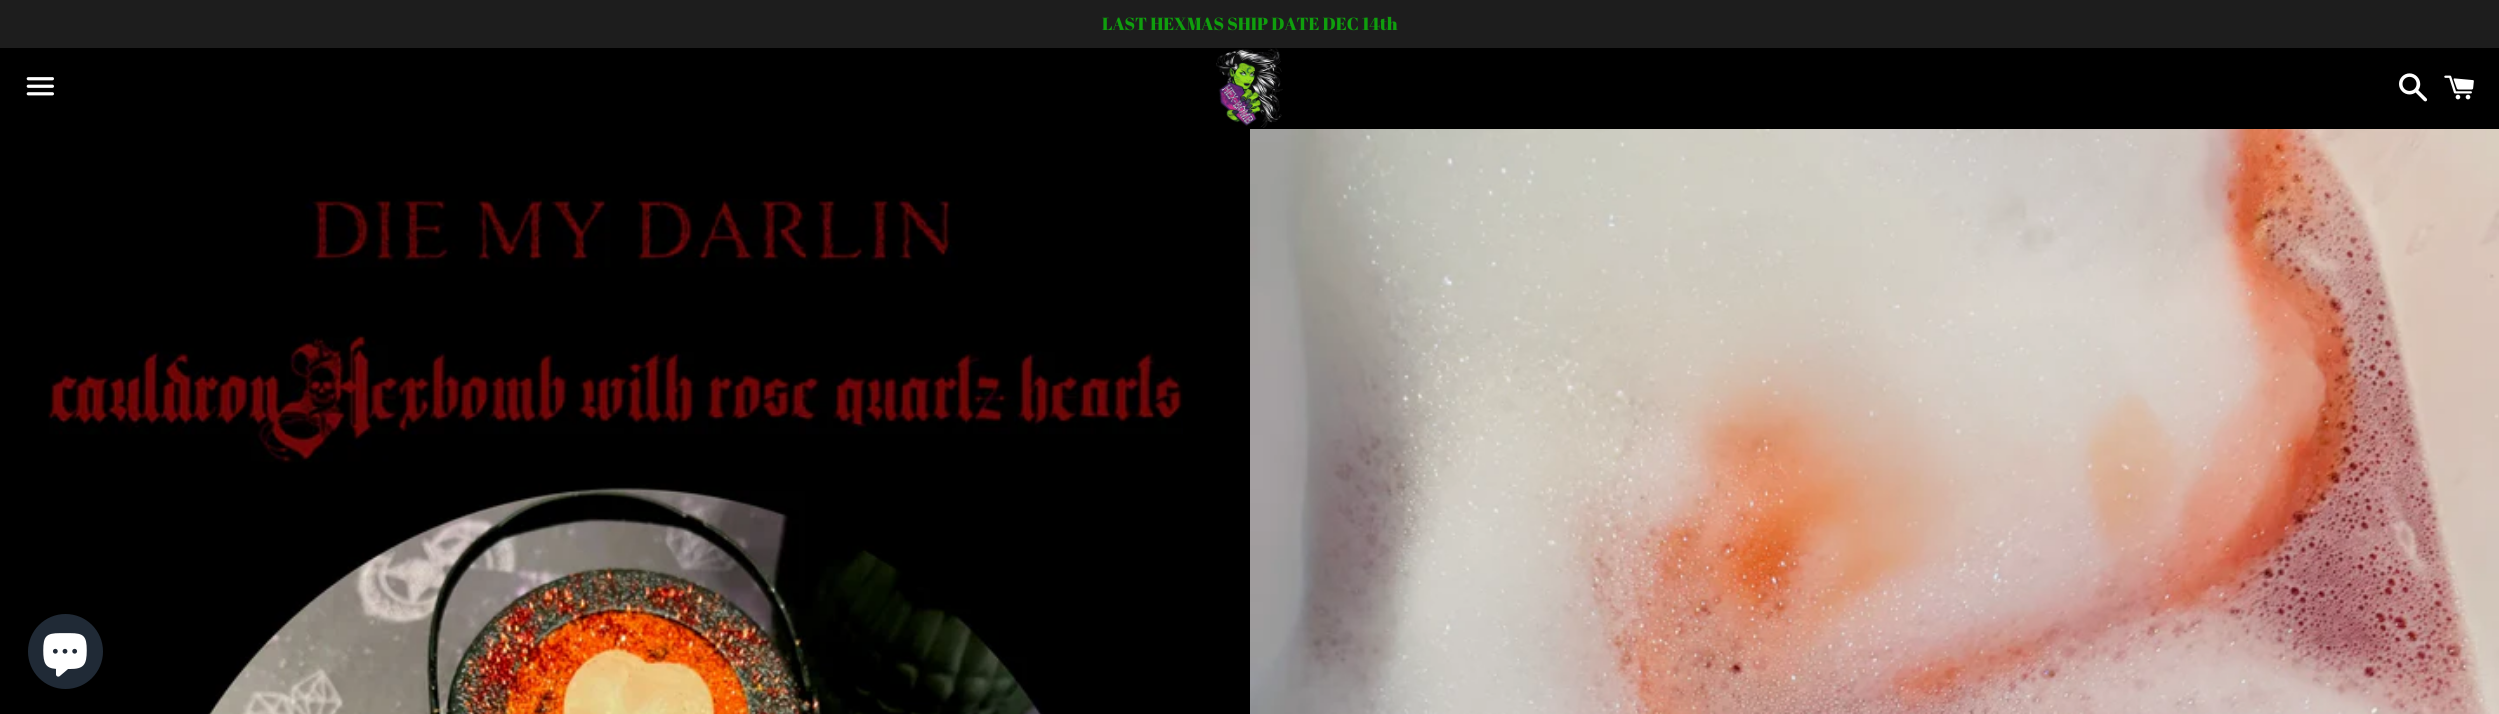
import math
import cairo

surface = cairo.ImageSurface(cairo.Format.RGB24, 2499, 714)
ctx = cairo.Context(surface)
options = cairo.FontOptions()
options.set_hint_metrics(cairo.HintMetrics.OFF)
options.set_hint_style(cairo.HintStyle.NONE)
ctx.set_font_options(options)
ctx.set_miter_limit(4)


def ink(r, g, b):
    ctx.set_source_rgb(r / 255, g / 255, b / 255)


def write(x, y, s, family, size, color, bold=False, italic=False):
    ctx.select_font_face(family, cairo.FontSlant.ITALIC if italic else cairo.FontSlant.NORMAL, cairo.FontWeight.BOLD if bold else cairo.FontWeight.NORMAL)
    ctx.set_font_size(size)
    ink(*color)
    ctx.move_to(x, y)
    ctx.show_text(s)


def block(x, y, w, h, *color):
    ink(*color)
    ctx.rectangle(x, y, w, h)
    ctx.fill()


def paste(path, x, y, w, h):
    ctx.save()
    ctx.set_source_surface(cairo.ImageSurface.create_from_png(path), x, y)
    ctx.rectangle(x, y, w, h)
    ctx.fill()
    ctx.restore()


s1 = dict(family="Abril Fatface", size=17.5, color=(15, 159, 13))

ink(0, 0, 0)
ctx.paint()
block(0, 0, 2499, 48, 29, 29, 29)
write(1102, 30, "LAST HEXMAS SHIP DATE DEC 14th", **s1)
paste("pic1.png", 26, 77, 28, 19)
paste("pic2.png", 1216, 48, 67, 80)
paste("pic3.png", 2399, 73, 29, 29)
paste("pic4.png", 2444, 75, 30, 25)
paste("pic5.png", 48, 198, 1135, 516)
paste("pic6.png", 1250, 129, 1249, 585)
ink(32, 42, 54)
ctx.arc(65.5, 651.5, 37.5, 0, 2 * math.pi)
ctx.fill()
paste("pic7.png", 43, 633, 44, 44)
surface.write_to_png("screenshot.png")
